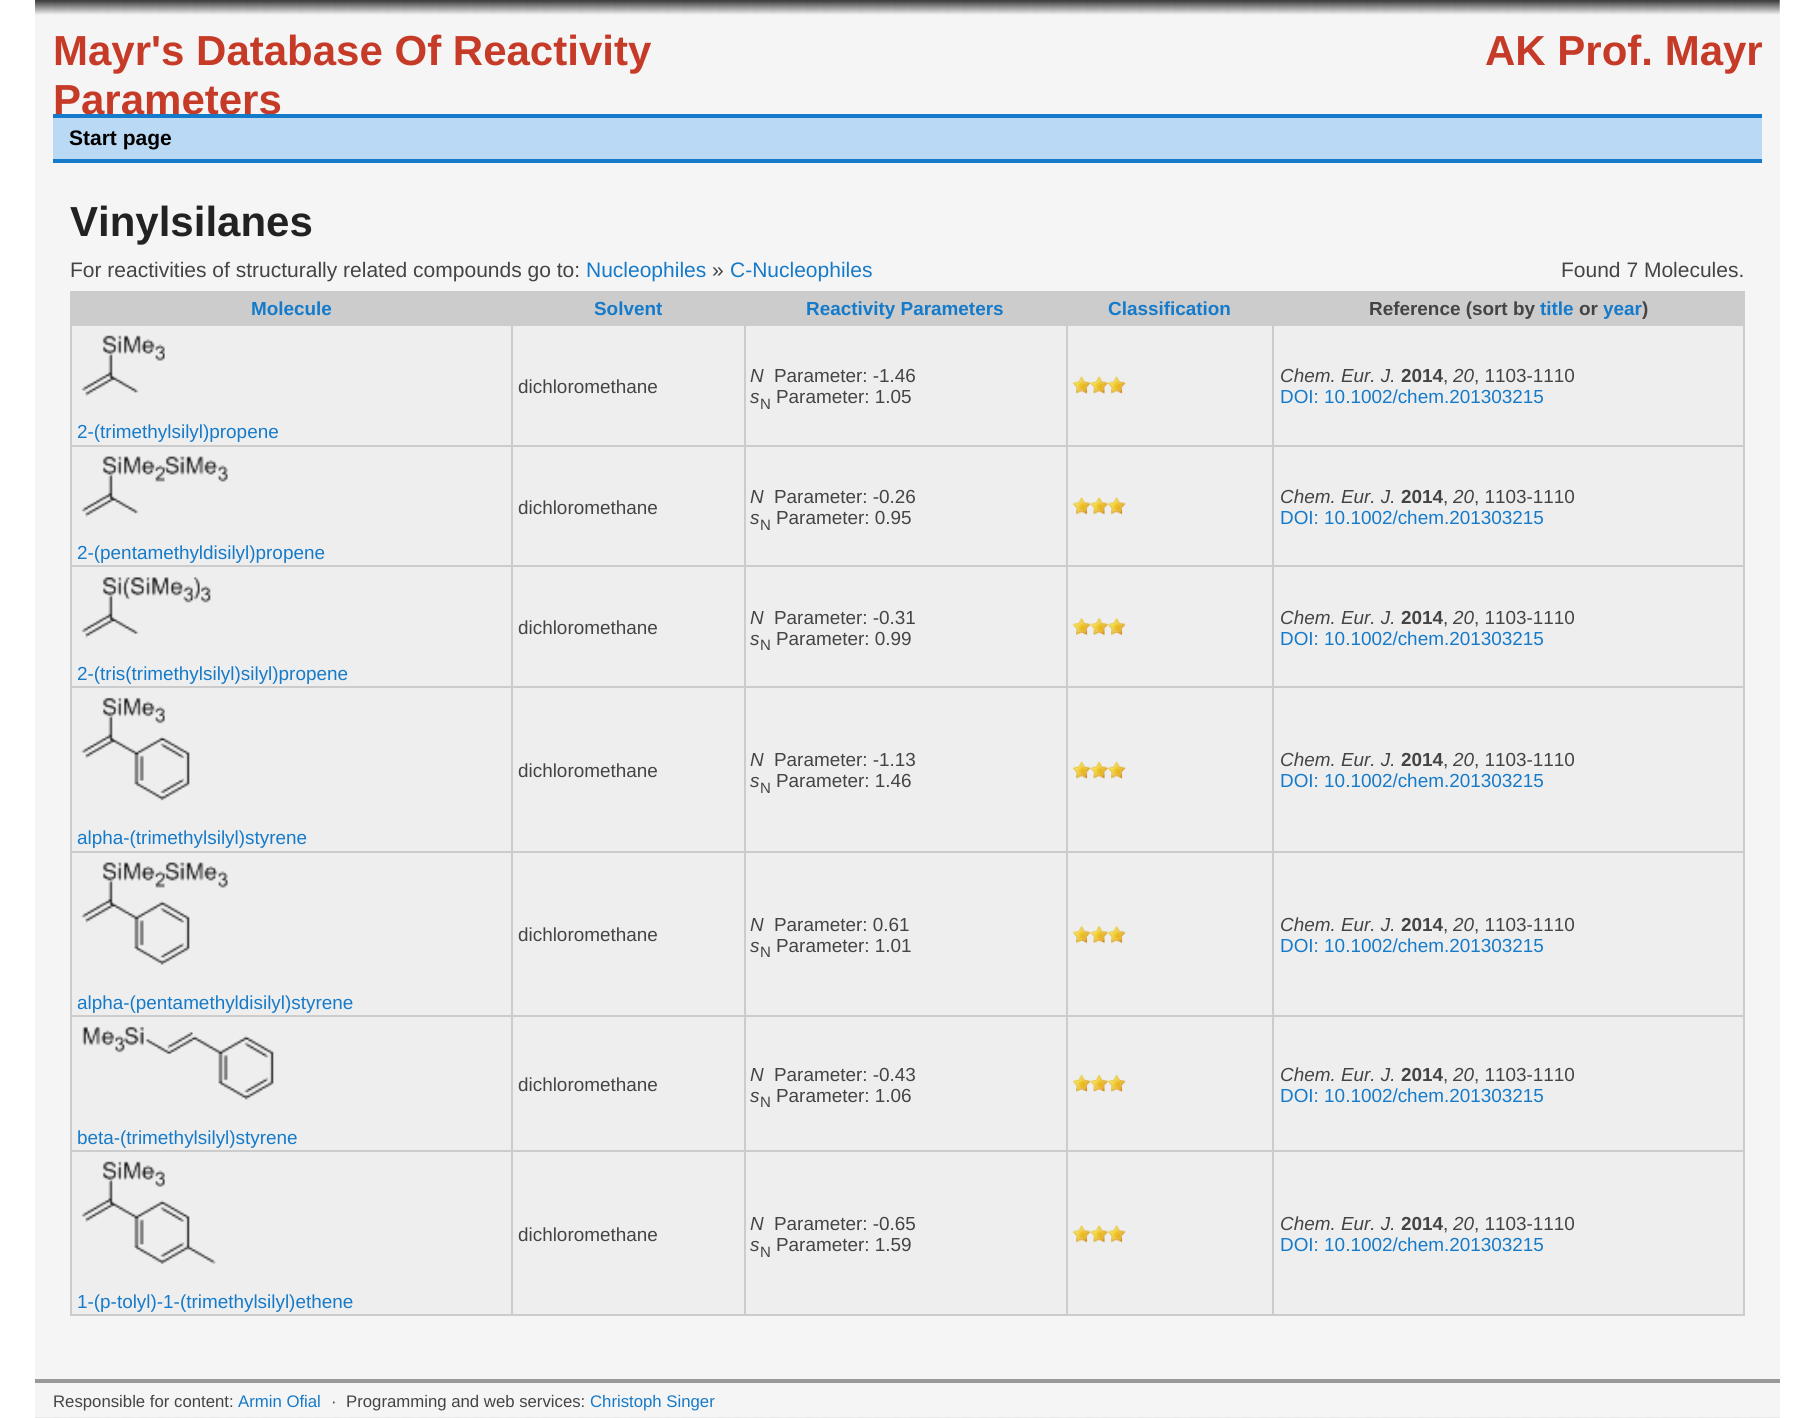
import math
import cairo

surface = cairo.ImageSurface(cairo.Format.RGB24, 1814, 1418)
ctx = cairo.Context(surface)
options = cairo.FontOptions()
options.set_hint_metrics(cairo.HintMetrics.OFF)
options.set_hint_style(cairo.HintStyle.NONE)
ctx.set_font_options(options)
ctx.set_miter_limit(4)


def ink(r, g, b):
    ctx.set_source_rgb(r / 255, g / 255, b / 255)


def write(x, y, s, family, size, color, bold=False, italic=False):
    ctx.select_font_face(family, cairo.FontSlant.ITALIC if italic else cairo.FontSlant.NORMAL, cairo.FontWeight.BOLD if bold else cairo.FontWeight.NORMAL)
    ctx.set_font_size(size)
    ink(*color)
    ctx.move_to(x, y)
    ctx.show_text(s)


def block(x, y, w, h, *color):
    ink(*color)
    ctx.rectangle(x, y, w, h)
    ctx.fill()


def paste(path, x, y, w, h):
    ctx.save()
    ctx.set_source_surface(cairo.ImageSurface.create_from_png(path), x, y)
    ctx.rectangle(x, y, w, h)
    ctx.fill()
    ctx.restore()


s1 = dict(family="Liberation Sans", size=42, color=(198, 58, 40), bold=True)
s2 = dict(family="Liberation Sans", size=21, color=(0, 0, 0), bold=True)
s3 = dict(family="Liberation Sans", size=42, color=(34, 34, 34), bold=True)
s4 = dict(family="Liberation Sans", size=21, color=(68, 68, 68))
s5 = dict(family="Liberation Sans", size=21, color=(21, 122, 201))
s6 = dict(family="Liberation Sans", size=18.9, color=(21, 122, 201), bold=True)
s7 = dict(family="Liberation Sans", size=18.9, color=(68, 68, 68), bold=True)
s8 = dict(family="Liberation Sans", size=18.9, color=(68, 68, 68))
s9 = dict(family="Liberation Sans", size=18.9, color=(68, 68, 68), italic=True)
s10 = dict(family="Liberation Sans", size=15, color=(68, 68, 68))
s11 = dict(family="Liberation Sans", size=18.9, color=(21, 122, 201))
s12 = dict(family="Liberation Sans", size=16.75, color=(68, 68, 68))
s13 = dict(family="Liberation Sans", size=16.75, color=(21, 122, 201))

ink(255, 255, 255)
ctx.paint()
block(35, 0, 1745, 1418, 245, 245, 245)
paste("pic1.png", 35, 0, 1745, 15)
write(53, 65, "Mayr's Database Of Reactivity", **s1)
write(53, 114, "Parameters", **s1)
write(1485, 65, "AK Prof. Mayr", **s1)
block(53, 118, 1709, 41, 186, 217, 245)
block(53, 114, 1709, 4, 21, 122, 201)
block(53, 159, 1709, 4, 21, 122, 201)
write(69, 145, "Start page", **s2)
write(70, 236, "Vinylsilanes", **s3)
write(70, 277, "For reactivities of structurally related compounds go to:", **s4)
write(586, 277, "Nucleophiles", **s5)
write(712, 277, "»", **s4)
write(730, 277, "C-Nucleophiles", **s5)
write(1561, 277, "Found 7 Molecules.", **s4)
block(70, 291, 1675, 2, 204, 204, 204)
block(1743, 291, 2, 1025, 204, 204, 204)
block(70, 1314, 1675, 2, 204, 204, 204)
block(70, 291, 2, 1025, 204, 204, 204)
block(72, 293, 1671, 33, 204, 204, 204)
write(251, 315, "Molecule", **s6)
write(594, 315, "Solvent", **s6)
write(806, 315, "Reactivity Parameters", **s6)
write(1108, 315, "Classification", **s6)
write(1369, 315, "Reference (sort by", **s7)
write(1540, 315, "title", **s6)
write(1579, 315, "or", **s7)
write(1603, 315, "year", **s6)
write(1642, 315, ")", **s7)
block(513, 326, 231, 119, 238, 238, 238)
write(518, 393, "dichloromethane", **s8)
block(746, 326, 320, 119, 238, 238, 238)
write(750, 382, "N", **s9)
write(774, 382, "Parameter: -1.46", **s8)
write(750, 403, "s", **s9)
write(760, 409, "N", **s10)
write(776, 403, "Parameter: 1.05", **s8)
block(1068, 326, 204, 119, 238, 238, 238)
paste("pic2.png", 1072, 376, 19, 18)
paste("pic3.png", 1090, 376, 18, 18)
paste("pic4.png", 1107, 376, 19, 18)
block(1274, 326, 469, 119, 238, 238, 238)
write(1280, 382, "Chem. Eur. J.", **s9)
write(1401, 382, "2014", **s7)
write(1443, 382, ",", **s8)
write(1453, 382, "20", **s9)
write(1474, 382, ", 1103-1110", **s8)
write(1280, 403, "DOI: 10.1002/chem.201303215", **s11)
block(72, 326, 439, 119, 238, 238, 238)
paste("pic5.png", 81, 335, 84, 61)
write(77, 438, "2-(trimethylsilyl)propene", **s11)
block(70, 445, 1675, 2, 204, 204, 204)
block(513, 447, 231, 118, 238, 238, 238)
write(518, 514, "dichloromethane", **s8)
block(746, 447, 320, 118, 238, 238, 238)
write(750, 503, "N", **s9)
write(774, 503, "Parameter: -0.26", **s8)
write(750, 524, "s", **s9)
write(760, 530, "N", **s10)
write(776, 524, "Parameter: 0.95", **s8)
block(1068, 447, 204, 118, 238, 238, 238)
paste("pic6.png", 1072, 497, 19, 18)
paste("pic7.png", 1090, 497, 18, 18)
paste("pic8.png", 1107, 497, 19, 18)
block(1274, 447, 469, 118, 238, 238, 238)
write(1280, 503, "Chem. Eur. J.", **s9)
write(1401, 503, "2014", **s7)
write(1443, 503, ",", **s8)
write(1453, 503, "20", **s9)
write(1474, 503, ", 1103-1110", **s8)
write(1280, 524, "DOI: 10.1002/chem.201303215", **s11)
block(72, 447, 439, 118, 238, 238, 238)
paste("pic9.png", 81, 456, 147, 61)
write(77, 559, "2-(pentamethyldisilyl)propene", **s11)
block(70, 565, 1675, 2, 204, 204, 204)
block(513, 567, 231, 119, 238, 238, 238)
write(518, 634, "dichloromethane", **s8)
block(746, 567, 320, 119, 238, 238, 238)
write(750, 624, "N", **s9)
write(774, 624, "Parameter: -0.31", **s8)
write(750, 645, "s", **s9)
write(760, 650, "N", **s10)
write(776, 645, "Parameter: 0.99", **s8)
block(1068, 567, 204, 119, 238, 238, 238)
paste("pic10.png", 1072, 617, 19, 19)
paste("pic11.png", 1090, 617, 18, 19)
paste("pic12.png", 1107, 617, 19, 19)
block(1274, 567, 469, 119, 238, 238, 238)
write(1280, 624, "Chem. Eur. J.", **s9)
write(1401, 624, "2014", **s7)
write(1443, 624, ",", **s8)
write(1453, 624, "20", **s9)
write(1474, 624, ", 1103-1110", **s8)
write(1280, 645, "DOI: 10.1002/chem.201303215", **s11)
block(72, 567, 439, 119, 238, 238, 238)
paste("pic13.png", 81, 577, 130, 61)
write(77, 680, "2-(tris(trimethylsilyl)silyl)propene", **s11)
block(70, 686, 1675, 2, 204, 204, 204)
block(513, 688, 231, 163, 238, 238, 238)
write(518, 777, "dichloromethane", **s8)
block(746, 688, 320, 163, 238, 238, 238)
write(750, 766, "N", **s9)
write(774, 766, "Parameter: -1.13", **s8)
write(750, 787, "s", **s9)
write(760, 793, "N", **s10)
write(776, 787, "Parameter: 1.46", **s8)
block(1068, 688, 204, 163, 238, 238, 238)
paste("pic2.png", 1072, 761, 19, 18)
paste("pic3.png", 1090, 761, 18, 18)
paste("pic4.png", 1107, 761, 19, 18)
block(1274, 688, 469, 163, 238, 238, 238)
write(1280, 766, "Chem. Eur. J.", **s9)
write(1401, 766, "2014", **s7)
write(1443, 766, ",", **s8)
write(1453, 766, "20", **s9)
write(1474, 766, ", 1103-1110", **s8)
write(1280, 787, "DOI: 10.1002/chem.201303215", **s11)
block(72, 688, 439, 163, 238, 238, 238)
paste("pic14.png", 81, 697, 109, 104)
write(77, 844, "alpha-(trimethylsilyl)styrene", **s11)
block(70, 851, 1675, 2, 204, 204, 204)
block(513, 853, 231, 162, 238, 238, 238)
write(518, 941, "dichloromethane", **s8)
block(746, 853, 320, 162, 238, 238, 238)
write(750, 931, "N", **s9)
write(774, 931, "Parameter: 0.61", **s8)
write(750, 952, "s", **s9)
write(760, 957, "N", **s10)
write(776, 952, "Parameter: 1.01", **s8)
block(1068, 853, 204, 162, 238, 238, 238)
paste("pic10.png", 1072, 925, 19, 19)
paste("pic11.png", 1090, 925, 18, 19)
paste("pic12.png", 1107, 925, 19, 19)
block(1274, 853, 469, 162, 238, 238, 238)
write(1280, 931, "Chem. Eur. J.", **s9)
write(1401, 931, "2014", **s7)
write(1443, 931, ",", **s8)
write(1453, 931, "20", **s9)
write(1474, 931, ", 1103-1110", **s8)
write(1280, 952, "DOI: 10.1002/chem.201303215", **s11)
block(72, 853, 439, 162, 238, 238, 238)
paste("pic15.png", 81, 862, 147, 103)
write(77, 1009, "alpha-(pentamethyldisilyl)styrene", **s11)
block(70, 1015, 1675, 2, 204, 204, 204)
block(513, 1017, 231, 133, 238, 238, 238)
write(518, 1091, "dichloromethane", **s8)
block(746, 1017, 320, 133, 238, 238, 238)
write(750, 1081, "N", **s9)
write(774, 1081, "Parameter: -0.43", **s8)
write(750, 1102, "s", **s9)
write(760, 1107, "N", **s10)
write(776, 1102, "Parameter: 1.06", **s8)
block(1068, 1017, 204, 133, 238, 238, 238)
paste("pic16.png", 1072, 1074, 19, 18)
paste("pic17.png", 1090, 1074, 18, 18)
paste("pic18.png", 1107, 1074, 19, 18)
block(1274, 1017, 469, 133, 238, 238, 238)
write(1280, 1081, "Chem. Eur. J.", **s9)
write(1401, 1081, "2014", **s7)
write(1443, 1081, ",", **s8)
write(1453, 1081, "20", **s9)
write(1474, 1081, ", 1103-1110", **s8)
write(1280, 1102, "DOI: 10.1002/chem.201303215", **s11)
block(72, 1017, 439, 133, 238, 238, 238)
paste("pic19.png", 82, 1026, 192, 74)
write(77, 1144, "beta-(trimethylsilyl)styrene", **s11)
block(70, 1150, 1675, 2, 204, 204, 204)
block(513, 1152, 231, 162, 238, 238, 238)
block(511, 324, 2, 992, 204, 204, 204)
write(518, 1241, "dichloromethane", **s8)
block(746, 1152, 320, 162, 238, 238, 238)
block(744, 324, 2, 992, 204, 204, 204)
write(750, 1230, "N", **s9)
write(774, 1230, "Parameter: -0.65", **s8)
write(750, 1251, "s", **s9)
write(760, 1257, "N", **s10)
write(776, 1251, "Parameter: 1.59", **s8)
block(1068, 1152, 204, 162, 238, 238, 238)
block(1066, 324, 2, 992, 204, 204, 204)
paste("pic6.png", 1072, 1225, 19, 18)
paste("pic7.png", 1090, 1225, 18, 18)
paste("pic8.png", 1107, 1225, 19, 18)
block(1274, 1152, 469, 162, 238, 238, 238)
block(1272, 324, 2, 992, 204, 204, 204)
write(1280, 1230, "Chem. Eur. J.", **s9)
write(1401, 1230, "2014", **s7)
write(1443, 1230, ",", **s8)
write(1453, 1230, "20", **s9)
write(1474, 1230, ", 1103-1110", **s8)
write(1280, 1251, "DOI: 10.1002/chem.201303215", **s11)
block(72, 1152, 439, 162, 238, 238, 238)
paste("pic20.png", 81, 1161, 135, 103)
write(77, 1308, "1-(p-tolyl)-1-(trimethylsilyl)ethene", **s11)
paste("pic21.png", 35, 1417, 1745, 1)
block(35, 1379, 1745, 4, 153, 153, 153)
write(53, 1407, "Responsible for content:", **s12)
write(238, 1407, "Armin Ofial", **s13)
write(331, 1407, "·", **s12)
write(346, 1407, "Programming and web services:", **s12)
write(590, 1407, "Christoph Singer", **s13)
surface.write_to_png("screenshot.png")
